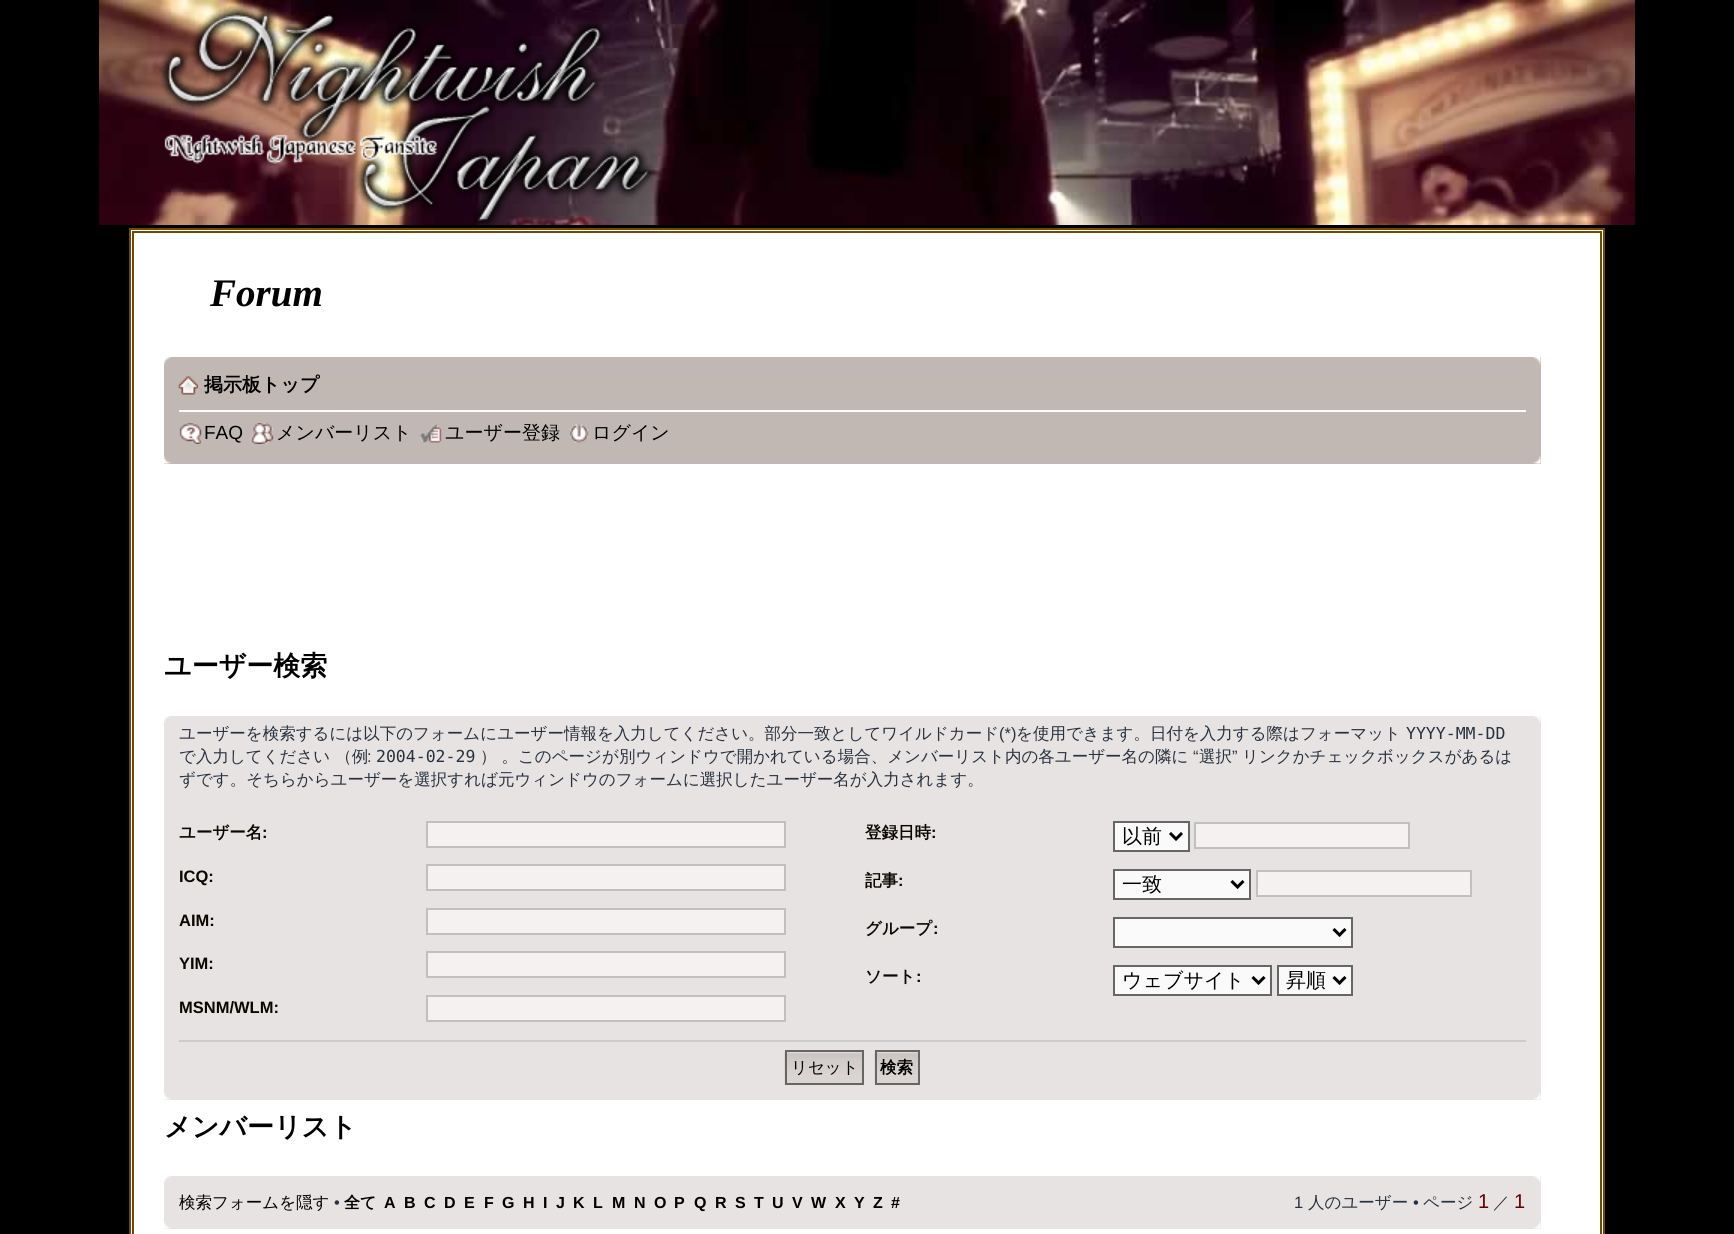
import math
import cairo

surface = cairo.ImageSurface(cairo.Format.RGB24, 1734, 1234)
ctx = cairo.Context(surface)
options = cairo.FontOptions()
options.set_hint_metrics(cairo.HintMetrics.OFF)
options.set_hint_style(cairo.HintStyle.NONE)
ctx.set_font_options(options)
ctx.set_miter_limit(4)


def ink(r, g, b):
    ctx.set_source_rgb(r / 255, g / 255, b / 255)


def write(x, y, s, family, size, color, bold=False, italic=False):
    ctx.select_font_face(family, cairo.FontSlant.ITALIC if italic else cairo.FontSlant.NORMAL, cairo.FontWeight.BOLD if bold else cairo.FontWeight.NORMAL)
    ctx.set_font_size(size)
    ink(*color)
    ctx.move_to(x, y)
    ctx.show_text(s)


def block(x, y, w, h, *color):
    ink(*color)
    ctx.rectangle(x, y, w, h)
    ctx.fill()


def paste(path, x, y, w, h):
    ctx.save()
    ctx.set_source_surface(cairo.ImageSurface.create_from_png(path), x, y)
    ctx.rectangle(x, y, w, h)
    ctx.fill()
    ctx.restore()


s1 = dict(family="Liberation Serif", size=39, color=(0, 0, 0), bold=True, italic=True)
s2 = dict(family="WenQuanYi Zen Hei", size=19, color=(0, 0, 0), bold=True)
s3 = dict(family="Liberation Sans", size=19, color=(0, 0, 0))
s4 = dict(family="WenQuanYi Zen Hei Medium", size=19, color=(0, 0, 0))
s5 = dict(family="WenQuanYi Zen Hei", size=27, color=(0, 0, 0), bold=True)
s6 = dict(family="WenQuanYi Zen Hei Medium", size=16.5, color=(40, 49, 63))
s7 = dict(family="Liberation Sans", size=16.5, color=(40, 49, 63))
s8 = dict(family="DejaVu Sans Mono", size=16.5, color=(40, 49, 63))
s9 = dict(family="WenQuanYi Zen Hei", size=16.5, color=(11, 7, 0), bold=True)
s10 = dict(family="Liberation Sans", size=16.5, color=(11, 7, 0), bold=True)
s11 = dict(family="WenQuanYi Zen Hei Medium", size=20, color=(0, 0, 0))
s12 = dict(family="WenQuanYi Zen Hei Medium", size=16.5, color=(0, 0, 0))
s13 = dict(family="WenQuanYi Zen Hei", size=16.5, color=(0, 0, 0), bold=True)
s14 = dict(family="WenQuanYi Zen Hei", size=16, color=(0, 0, 0), bold=True)
s15 = dict(family="Liberation Sans", size=16, color=(0, 0, 0), bold=True)
s16 = dict(family="Liberation Sans", size=20, color=(102, 0, 0))

ink(0, 0, 0)
ctx.paint()
paste("pic1.png", 99, 0, 1536, 225)
paste("pic2.png", 159, 6, 496, 219)
ink(255, 255, 255)
ctx.rectangle(130, 229, 1474, 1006)
ctx.fill_preserve()
ink(113, 73, 0)
ctx.stroke()
ctx.rectangle(133, 232, 1468, 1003)
ctx.stroke()
write(210, 306, "Forum", **s1)
block(164, 357, 1377, 107, 193, 184, 179)
paste("pic3.png", 164, 357, 8, 8)
paste("pic4.png", 1533, 357, 8, 8)
block(179, 410, 1347, 2, 255, 255, 255)
paste("pic5.png", 178, 376, 20, 19)
write(204, 391, "掲示板トップ", **s2)
paste("pic6.png", 179, 423, 24, 21)
write(204, 439, "FAQ", **s3)
paste("pic7.png", 250, 423, 25, 21)
write(276, 439, "メンバーリスト", **s4)
paste("pic8.png", 419, 424, 23, 20)
write(445, 439, "ユーザー登録", **s4)
paste("pic9.png", 569, 424, 20, 19)
write(592, 439, "ログイン", **s4)
paste("pic10.png", 164, 456, 7, 8)
paste("pic11.png", 1533, 456, 8, 8)
write(164, 675, "ユーザー検索", **s5)
block(164, 716, 1377, 384, 231, 227, 226)
paste("pic12.png", 164, 716, 7, 7)
paste("pic13.png", 1533, 716, 8, 7)
write(179, 739, "ユーザーを検索するには以下のフォームにユーザー情報を入力してください。部分一致としてワイルドカード", **s6)
write(999, 739, "(*)", **s7)
write(1016, 739, "を使用できます。日付を入力する際はフォーマット", **s6)
write(1406, 739, "YYYY-MM-DD", **s8)
write(179, 762, "で入力してください （例", **s6)
write(376, 762, "2004-02-29", **s8)
write(480, 762, "） 。このページが別ウィンドウで開かれている場合、メンバーリスト内の各ユーザー名の隣に", **s6)
write(1193, 762, "“", **s7)
write(1199, 762, "選択", **s6)
write(1232, 762, "”", **s7)
write(1242, 762, "リンクかチェックボックスがあるは", **s6)
write(367, 762, ":", **s7)
write(179, 785, "ずです。そちらからユーザーを選択すれば元ウィンドウのフォームに選択したユーザー名が入力されます。", **s6)
write(179, 838, "ユーザー名", **s9)
write(262, 838, ":", **s10)
ink(244, 241, 240)
ctx.rectangle(427, 822, 358, 25)
ctx.fill_preserve()
ink(192, 192, 192)
ctx.stroke()
write(179, 882, "ICQ:", **s10)
ink(244, 241, 240)
ctx.rectangle(427, 865, 358, 25)
ctx.fill_preserve()
ink(192, 192, 192)
ctx.stroke()
write(179, 926, "AIM:", **s10)
ink(244, 241, 240)
ctx.rectangle(427, 909, 358, 25)
ctx.fill_preserve()
ink(192, 192, 192)
ctx.stroke()
write(179, 969, "YIM:", **s10)
ink(244, 241, 240)
ctx.rectangle(427, 952, 358, 25)
ctx.fill_preserve()
ink(192, 192, 192)
ctx.stroke()
write(179, 1013, "MSNM/WLM:", **s10)
ink(244, 241, 240)
ctx.rectangle(427, 996, 358, 25)
ctx.fill_preserve()
ink(192, 192, 192)
ctx.stroke()
write(865, 838, "登録日時", **s9)
write(931, 838, ":", **s10)
ink(250, 250, 250)
ctx.rectangle(1114, 822, 75, 29)
ctx.fill_preserve()
ink(102, 102, 102)
ctx.stroke()
ctx.new_path()
ctx.move_to(1170, 833)
ctx.line_to(1176, 839)
ctx.line_to(1182, 833)
ink(0, 0, 0)
ctx.set_line_width(3)
ctx.stroke()
write(1122, 843, "以前", **s11)
ink(244, 241, 240)
ctx.rectangle(1195, 823, 214, 25)
ctx.fill_preserve()
ink(192, 192, 192)
ctx.set_line_width(2)
ctx.stroke()
write(865, 886, "記事", **s9)
write(898, 886, ":", **s10)
ink(250, 250, 250)
ctx.rectangle(1114, 870, 136, 29)
ctx.fill_preserve()
ink(102, 102, 102)
ctx.stroke()
ctx.new_path()
ctx.move_to(1231.5, 881)
ctx.line_to(1237.5, 887)
ctx.line_to(1243.5, 881)
ink(0, 0, 0)
ctx.set_line_width(3)
ctx.stroke()
write(1122, 891, "一致", **s11)
ink(244, 241, 240)
ctx.rectangle(1257, 871, 214, 25)
ctx.fill_preserve()
ink(192, 192, 192)
ctx.set_line_width(2)
ctx.stroke()
write(865, 934, "グループ", **s9)
write(933, 934, ":", **s10)
ink(250, 250, 250)
ctx.rectangle(1114, 918, 238, 29)
ctx.fill_preserve()
ink(102, 102, 102)
ctx.stroke()
ctx.new_path()
ctx.move_to(1333.5, 929)
ctx.line_to(1339.5, 935)
ctx.line_to(1345.5, 929)
ink(0, 0, 0)
ctx.set_line_width(3)
ctx.stroke()
write(865, 982, "ソート", **s9)
write(916, 982, ":", **s10)
ink(250, 250, 250)
ctx.rectangle(1114, 966, 157, 29)
ctx.fill_preserve()
ink(102, 102, 102)
ctx.set_line_width(2)
ctx.stroke()
ctx.new_path()
ctx.move_to(1252.5, 977)
ctx.line_to(1258.5, 983)
ctx.line_to(1264.5, 977)
ink(0, 0, 0)
ctx.set_line_width(3)
ctx.stroke()
write(1122, 987, "ウェブサイト", **s11)
ink(250, 250, 250)
ctx.rectangle(1278, 966, 74, 29)
ctx.fill_preserve()
ink(102, 102, 102)
ctx.set_line_width(2)
ctx.stroke()
ctx.new_path()
ctx.move_to(1333.5, 977)
ctx.line_to(1339.5, 983)
ctx.line_to(1345.5, 977)
ink(0, 0, 0)
ctx.set_line_width(3)
ctx.stroke()
write(1286, 987, "昇順", **s11)
block(179, 1040, 1347, 2, 204, 204, 204)
paste("pic14.png", 784, 1051, 78, 34)
ctx.rectangle(786, 1051, 77, 33)
ink(102, 102, 102)
ctx.set_line_width(2)
ctx.stroke()
write(791, 1073, "リセット", **s12)
paste("pic15.png", 874, 1051, 44, 34)
ctx.rectangle(876, 1051, 43, 33)
ink(102, 102, 102)
ctx.stroke()
write(880, 1073, "検索", **s13)
paste("pic16.png", 164, 1092, 7, 8)
paste("pic17.png", 1533, 1092, 8, 8)
write(164, 1136, "メンバーリスト", **s5)
block(164, 1176, 1377, 53, 231, 227, 226)
paste("pic18.png", 164, 1176, 7, 7)
paste("pic19.png", 1533, 1176, 8, 7)
write(179, 1208, "検索フォームを隠す", **s12)
write(334, 1208, "•", **s7)
write(344, 1208, "全て", **s14)
write(384, 1208, "A", **s15)
write(404, 1208, "B", **s15)
write(424, 1208, "C", **s15)
write(444, 1208, "D", **s15)
write(464, 1208, "E", **s15)
write(484, 1208, "F", **s15)
write(502, 1208, "G", **s15)
write(523, 1208, "H", **s15)
write(543, 1208, "I", **s15)
write(556, 1208, "J", **s15)
write(573, 1208, "K", **s15)
write(593, 1208, "L", **s15)
write(612, 1208, "M", **s15)
write(634, 1208, "N", **s15)
write(654, 1208, "O", **s15)
write(674, 1208, "P", **s15)
write(694, 1208, "Q", **s15)
write(715, 1208, "R", **s15)
write(735, 1208, "S", **s15)
write(754, 1208, "T", **s15)
write(772, 1208, "U", **s15)
write(792, 1208, "V", **s15)
write(811, 1208, "W", **s15)
write(835, 1208, "X", **s15)
write(854, 1208, "Y", **s15)
write(873, 1208, "Z", **s15)
write(891, 1208, "#", **s15)
write(1294, 1208, "1", **s7)
write(1308, 1208, "人のユーザー", **s6)
write(1413, 1208, "•", **s7)
write(1423, 1208, "ページ", **s6)
write(1478, 1208, "1", **s16)
write(1493, 1208, "／", **s6)
write(1514, 1208, "1", **s16)
paste("pic16.png", 164, 1221, 7, 8)
paste("pic17.png", 1533, 1221, 8, 8)
surface.write_to_png("screenshot.png")
